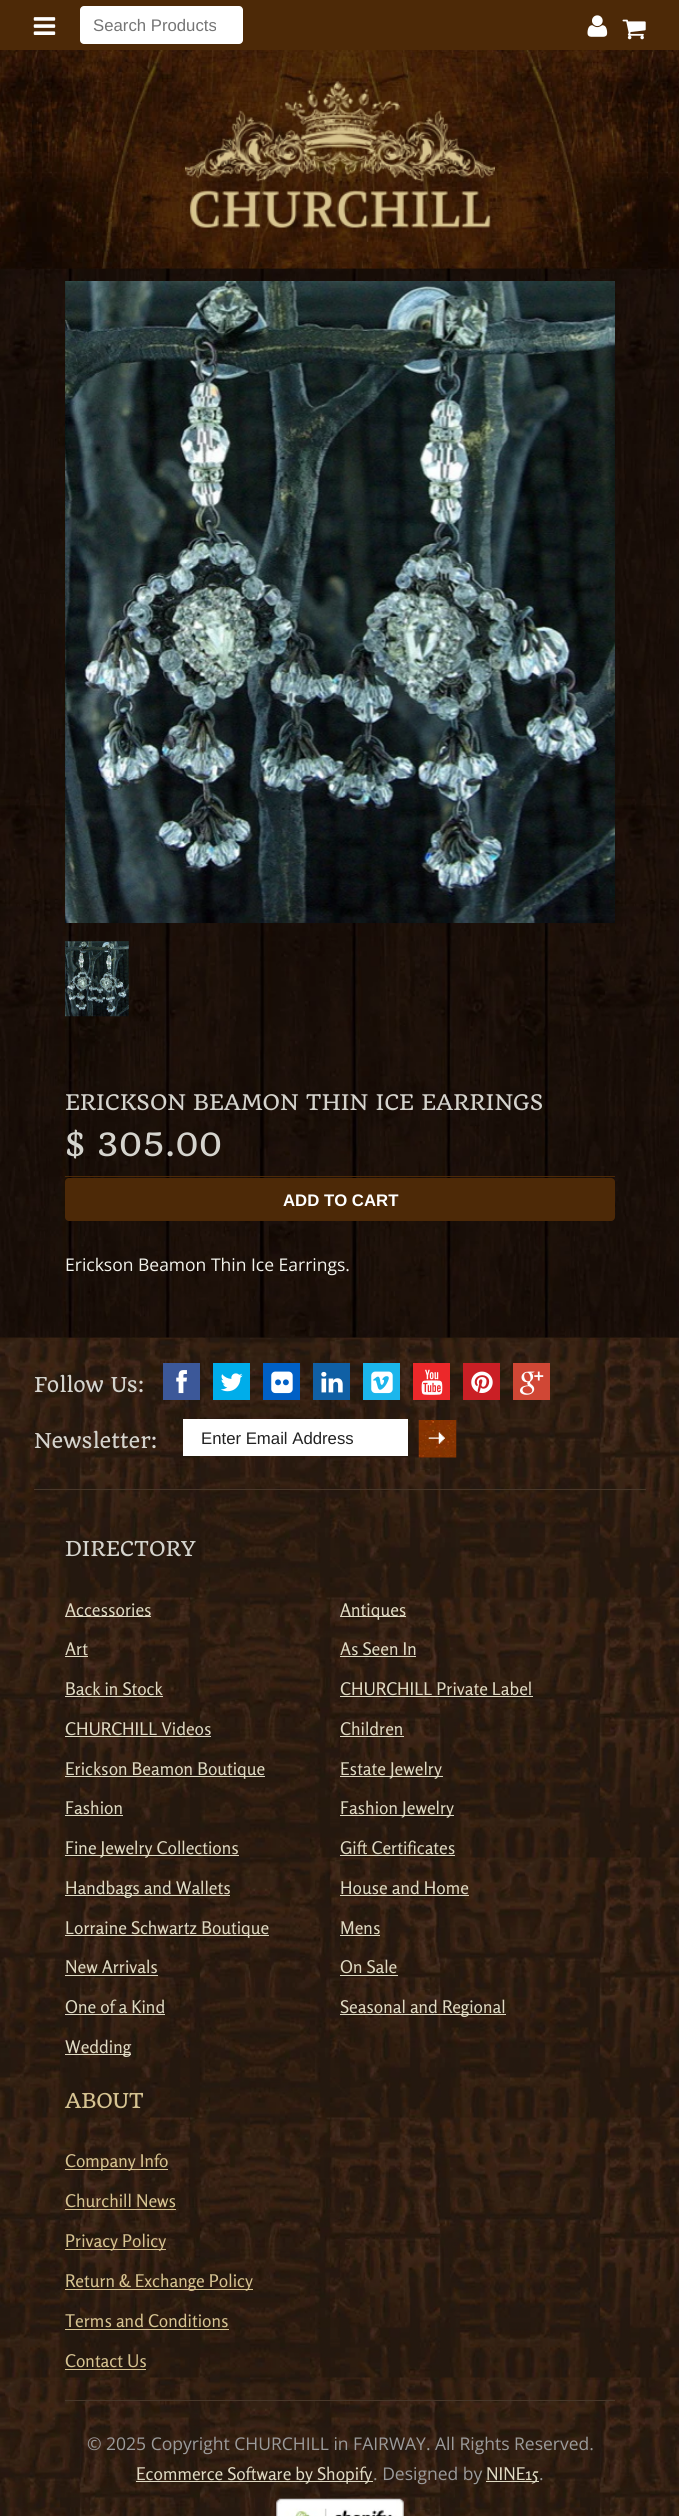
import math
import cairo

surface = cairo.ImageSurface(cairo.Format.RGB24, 679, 2516)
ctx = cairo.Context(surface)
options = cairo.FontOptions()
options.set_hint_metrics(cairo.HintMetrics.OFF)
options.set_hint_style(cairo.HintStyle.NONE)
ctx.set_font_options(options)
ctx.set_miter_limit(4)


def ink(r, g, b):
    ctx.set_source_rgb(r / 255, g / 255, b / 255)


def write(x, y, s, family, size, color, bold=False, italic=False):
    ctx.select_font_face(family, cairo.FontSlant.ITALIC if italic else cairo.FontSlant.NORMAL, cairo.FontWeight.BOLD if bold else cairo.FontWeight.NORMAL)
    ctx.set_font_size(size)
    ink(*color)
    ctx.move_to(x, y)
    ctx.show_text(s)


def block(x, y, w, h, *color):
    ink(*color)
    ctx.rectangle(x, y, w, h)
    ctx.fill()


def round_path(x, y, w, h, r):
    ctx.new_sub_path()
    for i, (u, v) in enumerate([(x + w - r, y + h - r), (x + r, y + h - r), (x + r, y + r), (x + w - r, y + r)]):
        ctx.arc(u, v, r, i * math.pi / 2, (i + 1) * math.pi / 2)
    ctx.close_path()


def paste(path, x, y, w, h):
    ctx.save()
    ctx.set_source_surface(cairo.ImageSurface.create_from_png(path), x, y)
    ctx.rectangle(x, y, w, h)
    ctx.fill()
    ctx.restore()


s1 = dict(family="Liberation Sans", size=16.75, color=(117, 117, 117))
s2 = dict(family="Quando", size=21, color=(213, 212, 206))
s3 = dict(family="Quando", size=31.5, color=(213, 212, 206))
s4 = dict(family="Liberation Sans", size=16.75, color=(255, 255, 255), bold=True)
s5 = dict(family="Open Sans", size=17.5, color=(244, 244, 237))
s6 = dict(family="Quando", size=20, color=(213, 212, 206))
s7 = dict(family="Liberation Sans", size=16.75, color=(34, 34, 34))
s8 = dict(family="Rosario", size=17.5, color=(224, 218, 195))
s9 = dict(family="Quando", size=20, color=(215, 196, 146))
s10 = dict(family="Rosario", size=17.5, color=(215, 196, 146))
s11 = dict(family="Open Sans", size=17.5, color=(155, 155, 155))

ink(255, 255, 255)
ctx.paint()
paste("pic1.png", 0, 268, 679, 1070)
block(0, 0, 679, 50, 77, 41, 7)
paste("pic2.png", 33, 17, 23, 18)
ink(255, 255, 255)
round_path(80, 6, 163, 38, 4)
ctx.fill()
write(93, 31, "Search Products", **s1)
paste("pic3.png", 587, 15, 21, 22)
paste("pic4.png", 622, 19, 24, 21)
paste("pic5.png", 0, 50, 679, 219)
paste("pic6.png", 185, 81, 310, 147)
paste("pic7.png", 0, 268, 679, 1070)
paste("pic8.png", 65, 281, 550, 642)
paste("pic9.png", 65, 941, 64, 76)
write(65, 1110, "ERICKSON BEAMON THIN ICE EARRINGS", **s2)
block(65, 1176, 550, 1, 77, 41, 7)
write(65, 1156, "$ 305.00", **s3)
ink(77, 41, 7)
round_path(65, 1178, 550, 43, 4)
ctx.fill()
write(283, 1206, "ADD TO CART", **s4)
write(65, 1271, "Erickson Beamon Thin Ice Earrings.", **s5)
paste("pic10.png", 0, 1337, 679, 1179)
block(34, 1489, 612, 1, 72, 56, 43)
write(34, 1392, "Follow Us:", **s6)
block(163, 1363, 37, 37, 60, 88, 153)
paste("pic11.png", 176, 1370, 11, 24)
block(213, 1363, 37, 37, 0, 173, 234)
paste("pic12.png", 220, 1373, 23, 19)
block(263, 1363, 37, 37, 0, 96, 198)
paste("pic13.png", 271, 1371, 22, 23)
block(313, 1363, 37, 37, 16, 96, 165)
paste("pic14.png", 321, 1371, 22, 22)
block(363, 1363, 37, 37, 27, 182, 236)
paste("pic15.png", 371, 1371, 22, 23)
block(413, 1363, 37, 37, 236, 40, 42)
paste("pic16.png", 421, 1369, 22, 26)
block(463, 1363, 37, 37, 202, 31, 37)
paste("pic17.png", 471, 1371, 22, 22)
block(513, 1363, 37, 37, 208, 71, 53)
paste("pic18.png", 520, 1371, 24, 24)
write(34, 1448, "Newsletter:", **s6)
block(183, 1419, 225, 37, 255, 255, 255)
write(201, 1444, "Enter Email Address", **s7)
paste("pic19.png", 418, 1420, 39, 38)
paste("pic20.png", 428, 1432, 17, 12)
block(65, 2400, 550, 1, 72, 56, 43)
write(65, 1556, "DIRECTORY", **s6)
block(65, 1616, 86, 1, 224, 218, 195)
write(65, 1616, "Accessories", **s8)
block(340, 1616, 66, 1, 224, 218, 195)
write(340, 1616, "Antiques", **s8)
write(65, 1655, "Art", **s8)
block(65, 1656, 23, 1, 224, 218, 195)
write(340, 1655, "As Seen In", **s8)
block(340, 1656, 76, 1, 224, 218, 195)
write(65, 1695, "Back in Stock", **s8)
block(65, 1696, 98, 1, 224, 218, 195)
write(340, 1695, "CHURCHILL Private Label", **s8)
block(340, 1696, 193, 1, 224, 218, 195)
write(65, 1735, "CHURCHILL Videos", **s8)
block(65, 1736, 146, 1, 224, 218, 195)
write(340, 1735, "Children", **s8)
block(340, 1736, 64, 1, 224, 218, 195)
block(65, 1776, 200, 1, 224, 218, 195)
write(65, 1775, "Erickson Beamon Boutique", **s8)
block(340, 1776, 103, 1, 224, 218, 195)
write(340, 1775, "Estate Jewelry", **s8)
write(65, 1814, "Fashion", **s8)
block(65, 1815, 58, 1, 224, 218, 195)
block(340, 1815, 114, 1, 224, 218, 195)
write(340, 1814, "Fashion Jewelry", **s8)
block(65, 1855, 174, 1, 224, 218, 195)
write(65, 1854, "Fine Jewelry Collections", **s8)
write(340, 1854, "Gift Certificates", **s8)
block(340, 1855, 115, 1, 224, 218, 195)
block(65, 1895, 165, 1, 224, 218, 195)
write(65, 1894, "Handbags and Wallets", **s8)
write(340, 1894, "House and Home", **s8)
block(340, 1895, 129, 1, 224, 218, 195)
block(65, 1935, 204, 1, 224, 218, 195)
write(65, 1934, "Lorraine Schwartz Boutique", **s8)
write(340, 1934, "Mens", **s8)
block(340, 1935, 40, 1, 224, 218, 195)
write(65, 1973, "New Arrivals", **s8)
block(65, 1975, 93, 1, 224, 218, 195)
write(340, 1973, "On Sale", **s8)
block(340, 1975, 58, 1, 224, 218, 195)
write(65, 2013, "One of a Kind", **s8)
block(65, 2014, 100, 1, 224, 218, 195)
block(340, 2014, 166, 1, 224, 218, 195)
write(340, 2013, "Seasonal and Regional", **s8)
block(65, 2054, 66, 1, 224, 218, 195)
write(65, 2053, "Wedding", **s8)
write(65, 2108, "ABOUT", **s9)
block(65, 2169, 103, 1, 215, 196, 146)
write(65, 2167, "Company Info", **s10)
write(65, 2207, "Churchill News", **s10)
block(65, 2209, 111, 1, 215, 196, 146)
block(65, 2249, 101, 1, 215, 196, 146)
write(65, 2247, "Privacy Policy", **s10)
block(65, 2289, 188, 1, 215, 196, 146)
write(65, 2287, "Return & Exchange Policy", **s10)
write(65, 2327, "Terms and Conditions", **s10)
block(65, 2329, 164, 1, 215, 196, 146)
write(65, 2367, "Contact Us", **s10)
block(65, 2369, 81, 1, 215, 196, 146)
write(87, 2450, "© 2025 Copyright CHURCHILL in FAIRWAY. All Rights Reserved.", **s11)
block(136, 2481, 237, 1, 224, 218, 195)
write(136, 2480, "Ecommerce Software by Shopify", **s8)
write(373, 2480, ". Designed by", **s11)
block(486, 2481, 53, 1, 224, 218, 195)
write(486, 2480, "NINE15", **s8)
write(539, 2480, ".", **s11)
paste("pic21.png", 276, 2498, 128, 18)
surface.write_to_png("screenshot.png")
